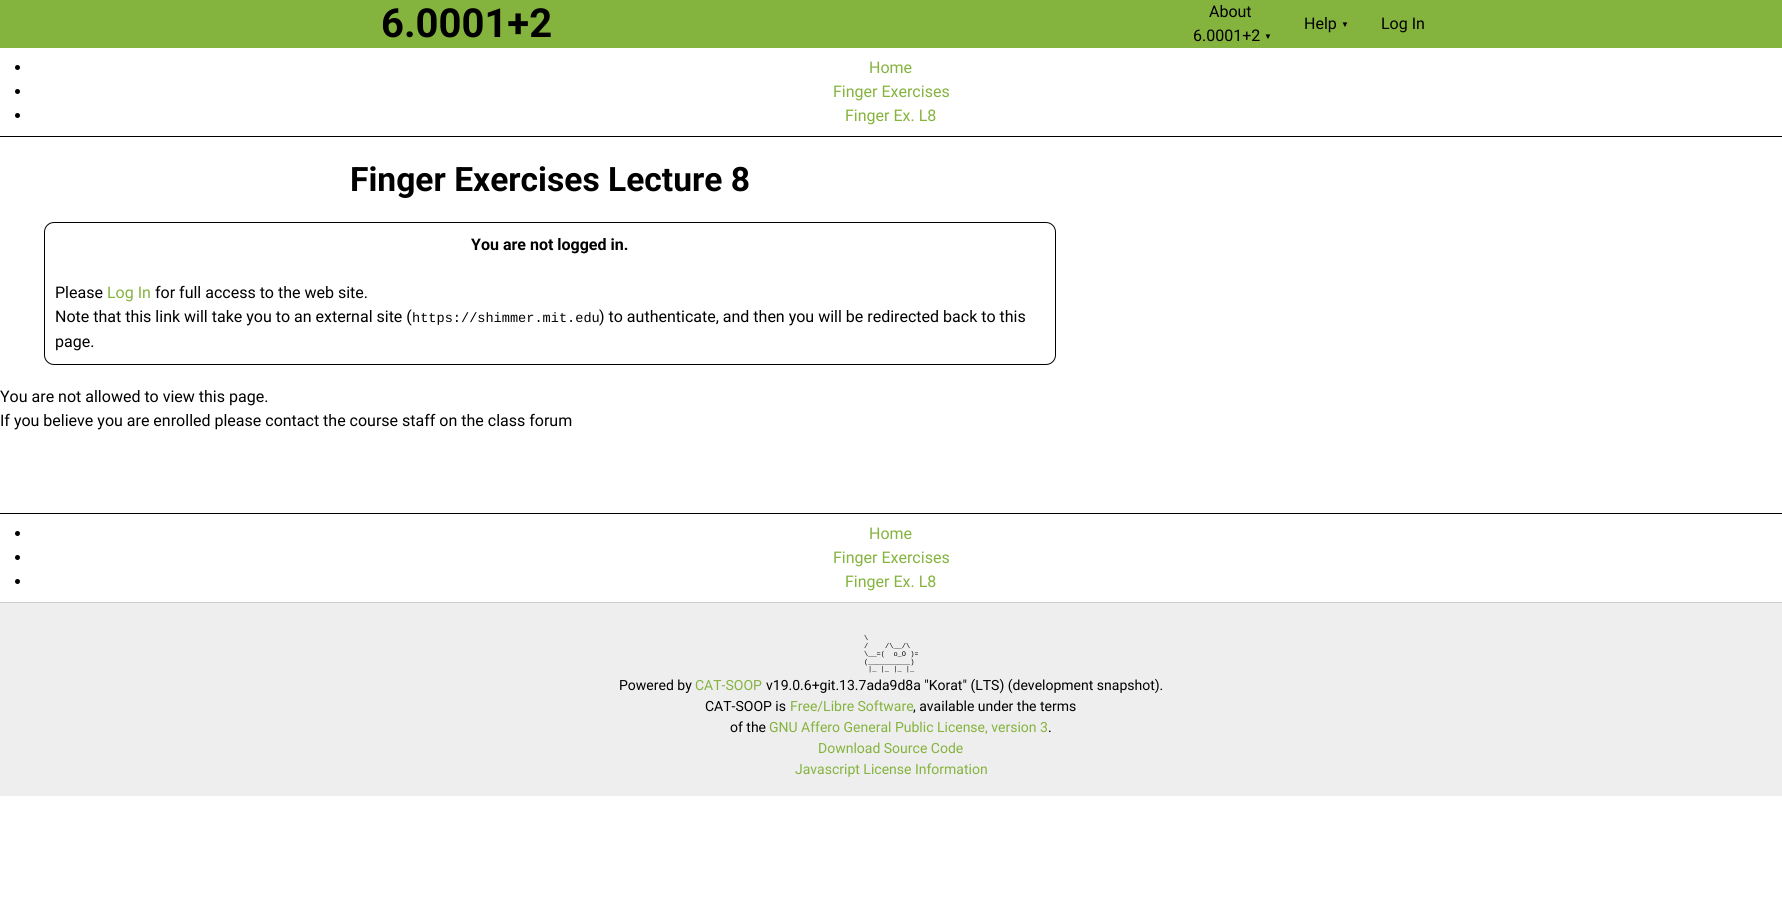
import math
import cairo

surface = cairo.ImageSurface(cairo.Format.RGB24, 1782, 912)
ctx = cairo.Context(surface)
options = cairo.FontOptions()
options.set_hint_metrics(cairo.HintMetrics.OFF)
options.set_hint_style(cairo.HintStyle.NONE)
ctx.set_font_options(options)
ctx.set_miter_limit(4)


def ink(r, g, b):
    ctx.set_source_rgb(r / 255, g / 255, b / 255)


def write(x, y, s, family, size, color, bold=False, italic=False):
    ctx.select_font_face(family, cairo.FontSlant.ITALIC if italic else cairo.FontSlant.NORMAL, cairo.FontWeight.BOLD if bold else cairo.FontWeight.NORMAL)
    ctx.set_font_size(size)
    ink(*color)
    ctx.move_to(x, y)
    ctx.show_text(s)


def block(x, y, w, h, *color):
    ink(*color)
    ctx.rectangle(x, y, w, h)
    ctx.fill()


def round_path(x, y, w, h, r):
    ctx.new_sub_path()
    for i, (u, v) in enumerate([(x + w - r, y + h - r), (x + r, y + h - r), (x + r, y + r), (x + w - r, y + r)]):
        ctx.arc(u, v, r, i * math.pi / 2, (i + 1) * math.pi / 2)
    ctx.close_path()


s1 = dict(family="Roboto", size=40, color=(0, 0, 0), bold=True)
s2 = dict(family="Roboto", size=16, color=(0, 0, 0))
s3 = dict(family="Liberation Sans", size=8, color=(0, 0, 0))
s4 = dict(family="Roboto", size=16, color=(132, 179, 62))
s5 = dict(family="Roboto", size=33.6, color=(0, 0, 0), bold=True)
s6 = dict(family="Roboto", size=16, color=(0, 0, 0), bold=True)
s7 = dict(family="Liberation Mono", size=13.6, color=(0, 0, 0))
s8 = dict(family="Liberation Mono", size=7, color=(0, 0, 0))
s9 = dict(family="Roboto", size=14, color=(0, 0, 0))
s10 = dict(family="Roboto", size=14, color=(132, 179, 62))

ink(255, 255, 255)
ctx.paint()
block(0, 0, 1782, 48, 132, 179, 62)
write(381, 37, "6.0001+2", **s1)
write(1209, 17, "About", **s2)
write(1193, 41, "6.0001+2", **s2)
write(1264, 39, "▼", **s3)
write(1304, 29, "Help", **s2)
write(1341, 27, "▼", **s3)
write(1381, 29, "Log In", **s2)
block(0, 136, 1782, 1, 0, 0, 0)
ctx.new_path()
ctx.arc(17.5, 67.5, 2.5, 0, 2 * math.pi)
ctx.fill()
write(869, 73, "Home", **s4)
ink(0, 0, 0)
ctx.new_path()
ctx.arc(17.5, 91.5, 2.5, 0, 2 * math.pi)
ctx.fill()
write(833, 97, "Finger Exercises", **s4)
ink(0, 0, 0)
ctx.new_path()
ctx.arc(17.5, 115.5, 2.5, 0, 2 * math.pi)
ctx.fill()
write(845, 121, "Finger Ex. L8", **s4)
write(350, 191, "Finger Exercises Lecture 8", **s5)
round_path(44.5, 222.5, 1011, 142, 9.5)
ctx.set_line_width(1)
ctx.stroke()
write(471, 250, "You are not logged in.", **s6)
write(55, 298, "Please", **s2)
write(107, 298, "Log In", **s4)
write(155, 298, "for full access to the web site.", **s2)
write(55, 322, "Note that this link will take you to an external site (", **s2)
write(412, 322, "https://shimmer.mit.edu", **s7)
write(599, 322, ") to authenticate, and then you will be redirected back to this", **s2)
write(55, 347, "page.", **s2)
write(0, 402, "You are not allowed to view this page.", **s2)
write(0, 426, "If you believe you are enrolled please contact the course staff on the class forum", **s2)
block(0, 513, 1782, 1, 0, 0, 0)
ctx.new_path()
ctx.arc(17.5, 533.5, 2.5, 0, 2 * math.pi)
ctx.fill()
write(869, 539, "Home", **s4)
ink(0, 0, 0)
ctx.new_path()
ctx.arc(17.5, 557.5, 2.5, 0, 2 * math.pi)
ctx.fill()
write(833, 563, "Finger Exercises", **s4)
ink(0, 0, 0)
ctx.new_path()
ctx.arc(17.5, 581.5, 2.5, 0, 2 * math.pi)
ctx.fill()
write(845, 587, "Finger Ex. L8", **s4)
block(0, 603, 1782, 193, 238, 238, 238)
block(0, 602, 1782, 1, 204, 204, 204)
write(864, 640, "\\", **s8)
write(864, 648, "/    /\\__/\\", **s8)
write(864, 656, "\\__=(  o_O )=", **s8)
write(864, 664, "(__________)", **s8)
write(868, 671, "|_ |_ |_ |_", **s8)
write(619, 690, "Powered by", **s9)
write(695, 690, "CAT-SOOP", **s10)
write(766, 690, "v19.0.6+git.13.7ada9d8a \"Korat\" (LTS) (development snapshot).", **s9)
write(705, 711, "CAT-SOOP is", **s9)
write(790, 711, "Free/Libre Software", **s10)
write(913, 711, ", available under the terms", **s9)
write(730, 732, "of the", **s9)
write(769, 732, "GNU Affero General Public License, version 3", **s10)
write(1048, 732, ".", **s9)
write(818, 753, "Download Source Code", **s10)
write(795, 774, "Javascript License Information", **s10)
surface.write_to_png("screenshot.png")
